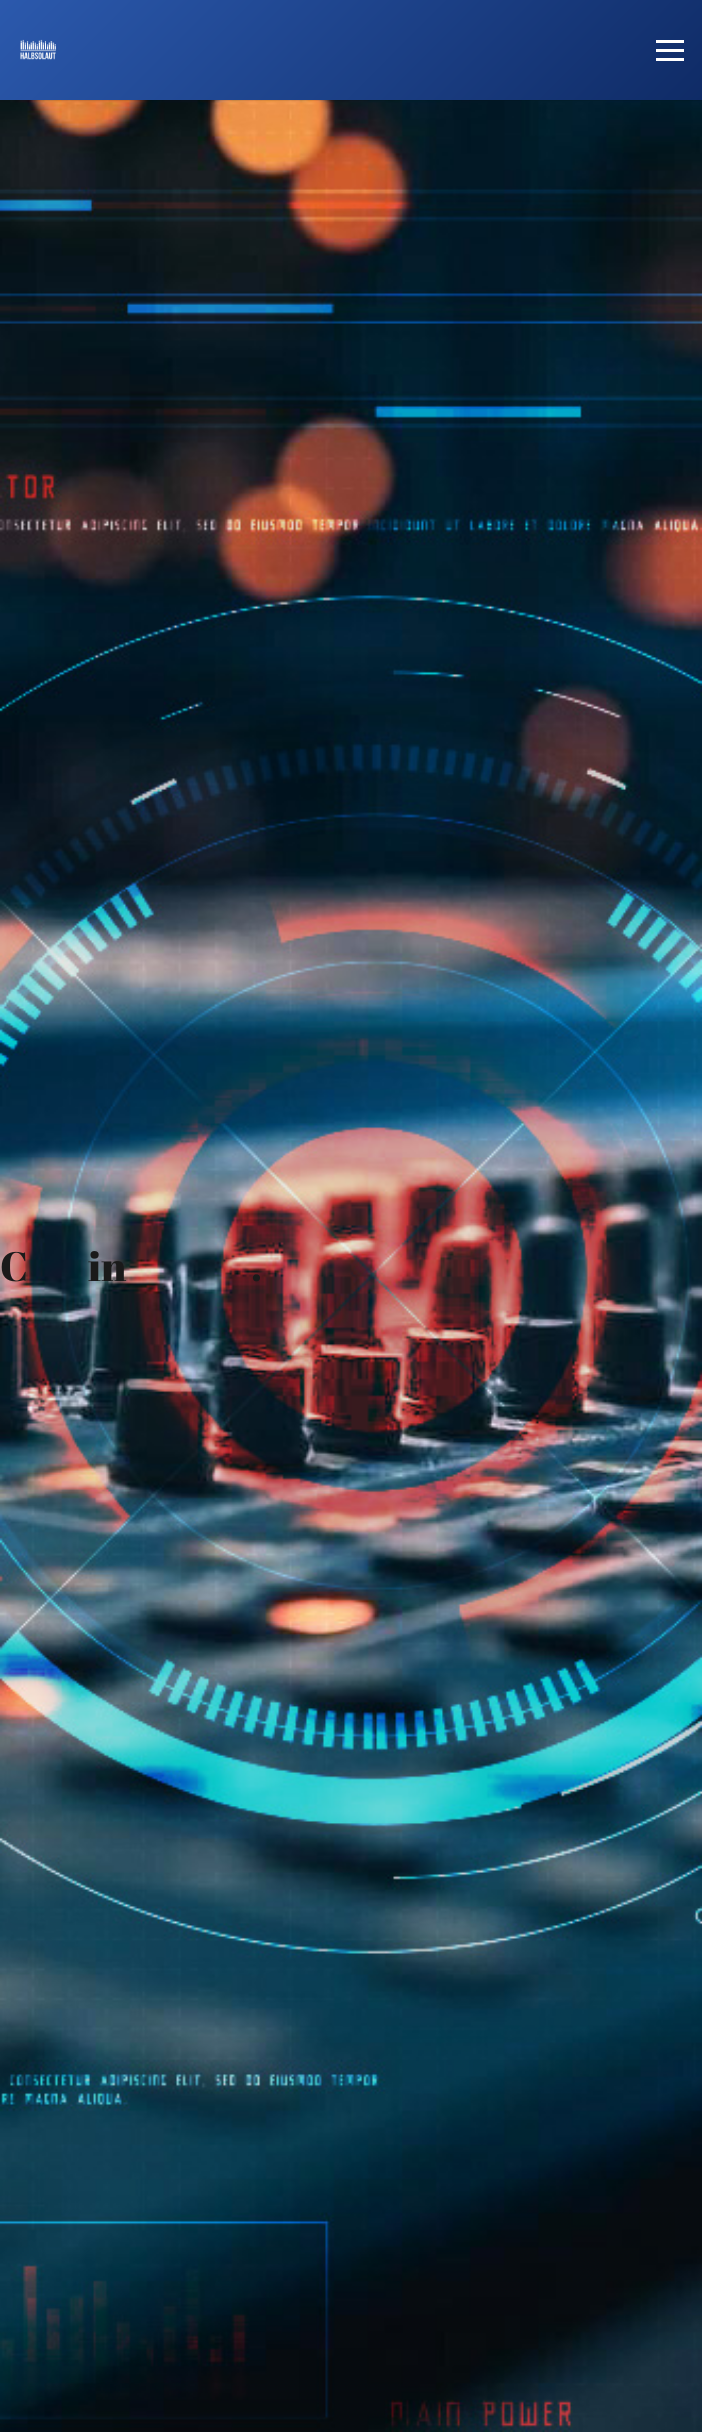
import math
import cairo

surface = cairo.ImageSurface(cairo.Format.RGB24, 702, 2432)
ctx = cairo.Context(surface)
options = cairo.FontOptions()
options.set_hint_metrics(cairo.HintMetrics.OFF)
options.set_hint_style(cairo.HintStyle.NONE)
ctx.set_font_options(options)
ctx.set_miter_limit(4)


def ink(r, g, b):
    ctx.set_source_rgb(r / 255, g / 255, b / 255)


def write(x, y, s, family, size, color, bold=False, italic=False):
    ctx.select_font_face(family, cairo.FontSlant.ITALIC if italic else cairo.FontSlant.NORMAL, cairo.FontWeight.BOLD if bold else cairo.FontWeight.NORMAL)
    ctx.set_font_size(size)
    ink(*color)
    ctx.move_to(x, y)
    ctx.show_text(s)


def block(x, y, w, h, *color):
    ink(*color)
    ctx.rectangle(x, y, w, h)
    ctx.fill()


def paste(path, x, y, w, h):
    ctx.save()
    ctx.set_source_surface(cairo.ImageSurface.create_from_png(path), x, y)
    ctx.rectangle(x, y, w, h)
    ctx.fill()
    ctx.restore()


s1 = dict(family="Abril Fatface", size=41, color=(26, 26, 26))

ink(255, 255, 255)
ctx.paint()
paste("pic2.png", 0, 100, 702, 2332)
ctx.set_source_rgba(0, 0, 0, 0.08)
ctx.rectangle(29, 100, 673, 1)
ctx.fill()
gradient = cairo.LinearGradient(150, -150, 552, 251)
gradient.add_color_stop_rgba(0, 0.169, 0.349, 0.678, 1)
gradient.add_color_stop_rgba(1, 0.059, 0.169, 0.4, 1)
ctx.set_source(gradient)
ctx.rectangle(0, 0, 702, 100)
ctx.fill()
paste("pic1.png", 20, 39, 36, 21)
block(656, 49, 28, 3, 255, 255, 255)
block(656, 40, 28, 3, 255, 255, 255)
block(656, 58, 28, 3, 255, 255, 255)
write(0, 1281, "C", **s1)
write(88, 1281, "in", **s1)
write(251, 1281, ".", **s1)
surface.write_to_png("screenshot.png")
